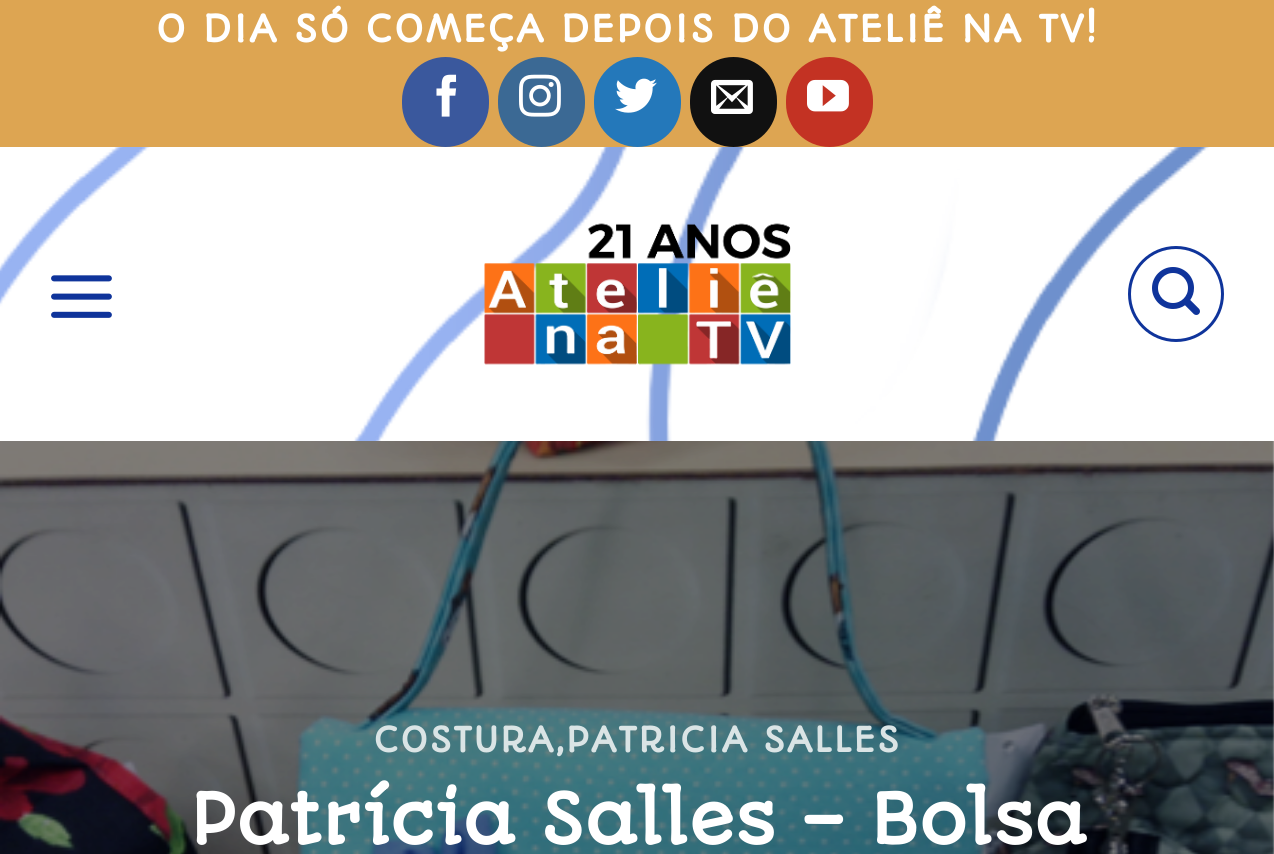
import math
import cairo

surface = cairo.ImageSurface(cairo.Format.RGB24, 1274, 854)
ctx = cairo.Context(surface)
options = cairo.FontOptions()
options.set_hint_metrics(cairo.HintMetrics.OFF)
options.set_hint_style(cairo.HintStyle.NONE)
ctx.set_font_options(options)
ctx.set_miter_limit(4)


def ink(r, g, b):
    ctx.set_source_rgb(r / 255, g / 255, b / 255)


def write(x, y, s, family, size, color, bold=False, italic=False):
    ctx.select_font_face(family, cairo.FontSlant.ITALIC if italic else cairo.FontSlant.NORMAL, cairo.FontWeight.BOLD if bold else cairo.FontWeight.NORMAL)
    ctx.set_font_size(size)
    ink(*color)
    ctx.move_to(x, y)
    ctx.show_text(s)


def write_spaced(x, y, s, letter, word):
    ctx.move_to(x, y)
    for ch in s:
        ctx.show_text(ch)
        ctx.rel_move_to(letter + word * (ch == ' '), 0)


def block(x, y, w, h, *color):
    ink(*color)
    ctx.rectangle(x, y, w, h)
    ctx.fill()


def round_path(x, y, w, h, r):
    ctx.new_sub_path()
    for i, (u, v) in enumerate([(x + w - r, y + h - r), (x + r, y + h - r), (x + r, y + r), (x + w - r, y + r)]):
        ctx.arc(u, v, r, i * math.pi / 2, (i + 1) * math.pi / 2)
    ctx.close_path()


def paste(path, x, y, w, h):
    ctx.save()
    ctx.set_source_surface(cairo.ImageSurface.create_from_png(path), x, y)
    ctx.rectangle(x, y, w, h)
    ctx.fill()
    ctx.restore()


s1 = dict(family="Autour One", size=67.25, color=(255, 255, 255), bold=True)

ink(255, 255, 255)
ctx.paint()
block(0, 0, 1274, 147, 221, 165, 82)
ctx.select_font_face("Autour One", cairo.FontSlant.NORMAL, cairo.FontWeight.BOLD)
ctx.set_font_size(36)
ink(255, 255, 255)
write_spaced(156, 42, "O DIA SÓ COMEÇA DEPOIS DO ATELIÊ NA TV!", 1.8, 0)
ink(58, 88, 157)
round_path(403.5, 58.5, 84, 87, 42)
ctx.fill_preserve()
ctx.set_line_width(3)
ctx.stroke()
paste("pic1.png", 436, 74, 21, 43)
ink(59, 105, 148)
round_path(499.5, 58.5, 84, 87, 42)
ctx.fill_preserve()
ctx.stroke()
paste("pic2.png", 519, 74, 42, 43)
ink(36, 120, 186)
round_path(595.5, 58.5, 84, 87, 42)
ctx.fill_preserve()
ctx.stroke()
paste("pic3.png", 615, 78, 42, 35)
ink(17, 17, 17)
round_path(691.5, 58.5, 84, 87, 42)
ctx.fill_preserve()
ctx.stroke()
paste("pic4.png", 711, 79, 42, 35)
ink(195, 50, 35)
round_path(787.5, 58.5, 84, 87, 42)
ctx.fill_preserve()
ctx.stroke()
paste("pic5.png", 807, 79, 42, 33)
paste("pic6.png", 0, 147, 1210, 294)
paste("pic7.png", 51, 275, 61, 43)
paste("pic8.png", 484, 223, 307, 142)
ctx.arc(1176, 294, 46.5, 0, 2 * math.pi)
ink(15, 52, 155)
ctx.stroke()
paste("pic9.png", 1152, 267, 48, 48)
paste("pic10.png", 0, 441, 1274, 413)
ctx.set_font_size(33.5)
ink(218, 228, 229)
write_spaced(374, 752, "COSTURA,", 1.7, 0)
write_spaced(566, 752, "PATRICIA SALLES", 1.7, 0)
write(190, 844, "Patrícia Salles – Bolsa", **s1)
surface.write_to_png("screenshot.png")
